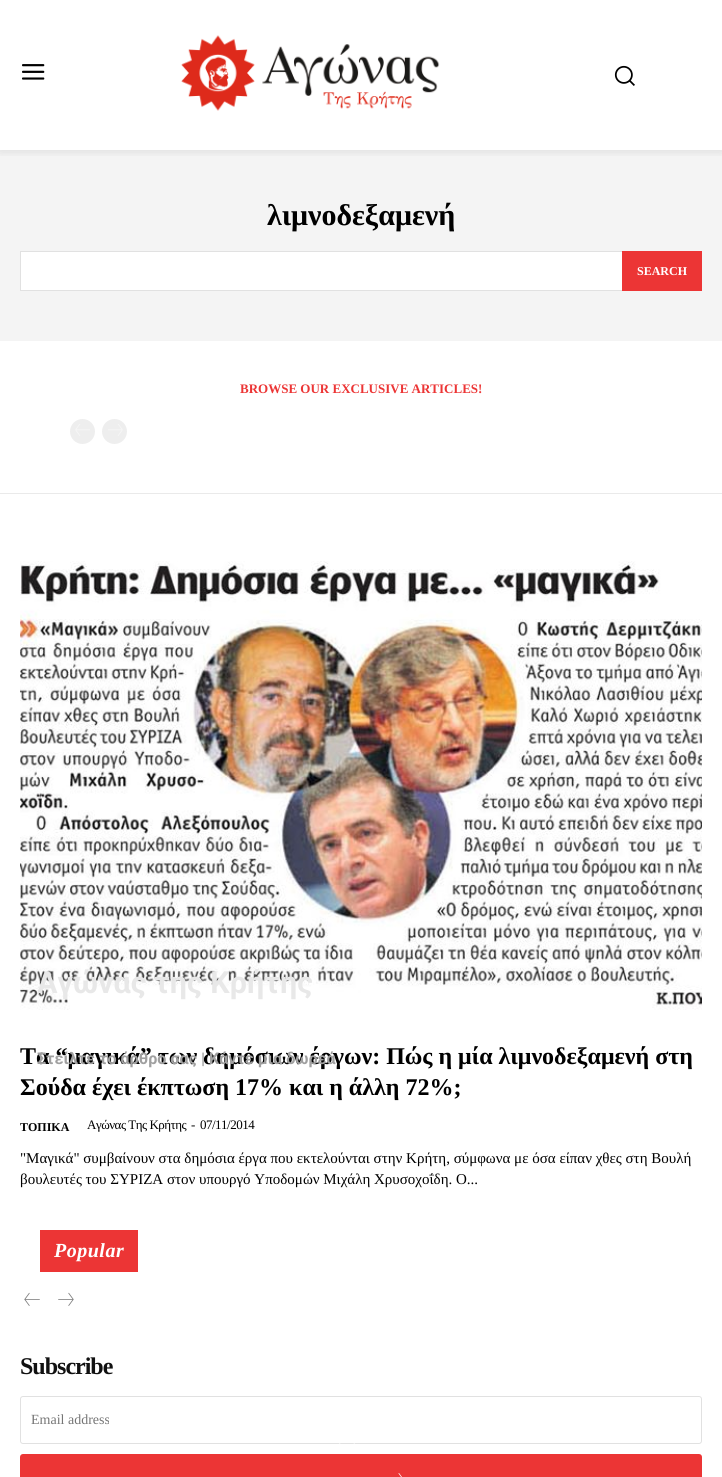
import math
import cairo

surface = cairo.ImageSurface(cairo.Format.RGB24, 722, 1477)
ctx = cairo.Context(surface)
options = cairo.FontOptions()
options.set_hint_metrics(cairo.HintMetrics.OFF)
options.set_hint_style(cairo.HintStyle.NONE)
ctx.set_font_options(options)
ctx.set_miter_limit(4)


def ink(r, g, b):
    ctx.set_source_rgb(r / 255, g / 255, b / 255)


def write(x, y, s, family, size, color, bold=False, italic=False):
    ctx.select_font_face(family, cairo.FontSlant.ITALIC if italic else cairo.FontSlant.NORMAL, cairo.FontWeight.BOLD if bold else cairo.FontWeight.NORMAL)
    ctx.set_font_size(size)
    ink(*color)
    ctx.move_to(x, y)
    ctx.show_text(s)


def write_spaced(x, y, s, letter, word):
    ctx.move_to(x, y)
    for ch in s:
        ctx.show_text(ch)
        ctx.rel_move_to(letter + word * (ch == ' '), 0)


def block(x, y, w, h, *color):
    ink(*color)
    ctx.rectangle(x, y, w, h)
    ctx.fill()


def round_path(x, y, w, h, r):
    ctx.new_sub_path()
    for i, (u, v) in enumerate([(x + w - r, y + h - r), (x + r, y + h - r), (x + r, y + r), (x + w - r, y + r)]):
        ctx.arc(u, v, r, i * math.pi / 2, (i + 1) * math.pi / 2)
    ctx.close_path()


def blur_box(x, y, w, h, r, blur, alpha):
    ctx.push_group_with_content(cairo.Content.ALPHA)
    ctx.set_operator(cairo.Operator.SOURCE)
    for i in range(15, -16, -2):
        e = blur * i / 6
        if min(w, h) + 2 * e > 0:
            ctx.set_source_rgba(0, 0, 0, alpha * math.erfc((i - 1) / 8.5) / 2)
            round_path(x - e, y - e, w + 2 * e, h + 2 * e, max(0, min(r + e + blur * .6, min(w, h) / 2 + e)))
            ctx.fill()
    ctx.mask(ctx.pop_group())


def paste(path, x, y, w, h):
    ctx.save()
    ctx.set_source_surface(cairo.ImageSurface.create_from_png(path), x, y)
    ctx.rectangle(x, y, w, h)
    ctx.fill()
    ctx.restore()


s1 = dict(family="Liberation Serif", size=30, color=(0, 0, 0), bold=True)
s2 = dict(family="Liberation Serif", size=12, color=(255, 255, 255), bold=True)
s3 = dict(family="Liberation Serif", size=13, color=(236, 53, 53), bold=True)
s4 = dict(family="Liberation Serif", size=24, color=(0, 0, 0), bold=True)
s5 = dict(family="Liberation Serif", size=12, color=(0, 0, 0), bold=True)
s6 = dict(family="Liberation Serif", size=15, color=(0, 0, 0))
s7 = dict(family="Liberation Serif", size=14, color=(117, 117, 117))
s8 = dict(family="Roboto", size=30.5, color=(232, 232, 232), bold=True)
s9 = dict(family="Roboto", size=16.1, color=(160, 160, 160), bold=True)

ink(255, 255, 255)
ctx.paint()
paste("pic1.png", 22, 64, 23, 16)
paste("pic2.png", 181, 35, 259, 76)
paste("pic3.png", 614, 65, 21, 21)
block(0, 150, 722, 191, 244, 244, 244)
ctx.save()
ctx.rectangle(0, 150, 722, 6)
ctx.clip()
ink(0, 0, 0)
blur_box(0, 2, 722, 150, 0, 5, 0.09)
ctx.restore()
write(267, 225, "λιμνοδεξαμενή", **s1)
block(21, 252, 601, 38, 255, 255, 255)
ctx.rectangle(20.5, 251.5, 681, 39)
ink(225, 225, 225)
ctx.set_line_width(1)
ctx.stroke()
block(622, 251, 80, 40, 236, 53, 53)
write(637, 275, "SEARCH", **s2)
write(240, 393, "BROWSE OUR EXCLUSIVE ARTICLES!", **s3)
ink(238, 238, 238)
ctx.new_path()
ctx.arc(82.5, 431.5, 12.5, 0, 2 * math.pi)
ctx.fill()
paste("pic4.png", 75, 424, 15, 12)
ctx.arc(114.5, 431.5, 12.5, 0, 2 * math.pi)
ctx.fill()
paste("pic5.png", 108, 424, 15, 12)
block(0, 493, 722, 1, 234, 234, 234)
paste("pic6.png", 20, 561, 682, 449)
write(20, 1064, "Τα “μαγικά” των δημόσιων έργων: Πώς η μία λιμνοδεξαμενή στη", **s4)
write(20, 1095, "Σούδα έχει έκπτωση 17% και η άλλη 72%;", **s4)
write(20, 1131, "ΤΟΠΙΚΑ", **s5)
ctx.select_font_face("Liberation Serif")
ctx.set_font_size(13)
write_spaced(87, 1129, "Αγώνας Της Κρήτης", -0.5, 0)
write_spaced(191, 1129, "-", -0.5, 0)
write_spaced(200, 1129, "07/11/2014", -0.5, 0)
write(20, 1163, "\"Μαγικά\" συμβαίνουν στα δημόσια έργα που εκτελούνται στην Κρήτη, σύμφωνα με όσα είπαν χθες στη Βουλή", **s6)
write(20, 1184, "βουλευτές του ΣΥΡΙΖΑ στον υπουργό Υποδομών Μιχάλη Χρυσοχοΐδη. Ο...", **s6)
block(40, 1230, 98, 42, 236, 53, 53)
ctx.select_font_face("Liberation Serif", cairo.FontSlant.ITALIC, cairo.FontWeight.BOLD)
ctx.set_font_size(20)
ink(255, 255, 255)
write_spaced(54, 1257, "Popular", 0.5, 0)
paste("pic7.png", 24, 1292, 16, 14)
paste("pic8.png", 58, 1292, 16, 14)
ctx.select_font_face("Liberation Serif", cairo.FontSlant.NORMAL, cairo.FontWeight.BOLD)
ctx.set_font_size(24)
ink(17, 17, 17)
write_spaced(20, 1374, "Subscribe", -1, 0)
round_path(20.5, 1396.5, 681, 47, 2.5)
ink(225, 225, 225)
ctx.stroke()
write(31, 1424, "Email address", **s7)
ink(236, 53, 53)
round_path(20, 1454, 682, 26, 3)
ctx.fill()
paste("pic9.png", 398, 1473, 4, 4)
ctx.new_path()
ctx.move_to(339, 1443)
ctx.curve_to(343.5, 1439, 350.5, 1439, 355, 1443)
ink(255, 255, 255)
ctx.set_line_width(2)
ctx.stroke()
write(37, 993, "Αγώνας της Κρήτης", **s8)
write(37, 1064, "Στείλτε το άρθρο σας | Κάντε μια δωρεά", **s9)
surface.write_to_png("screenshot.png")
